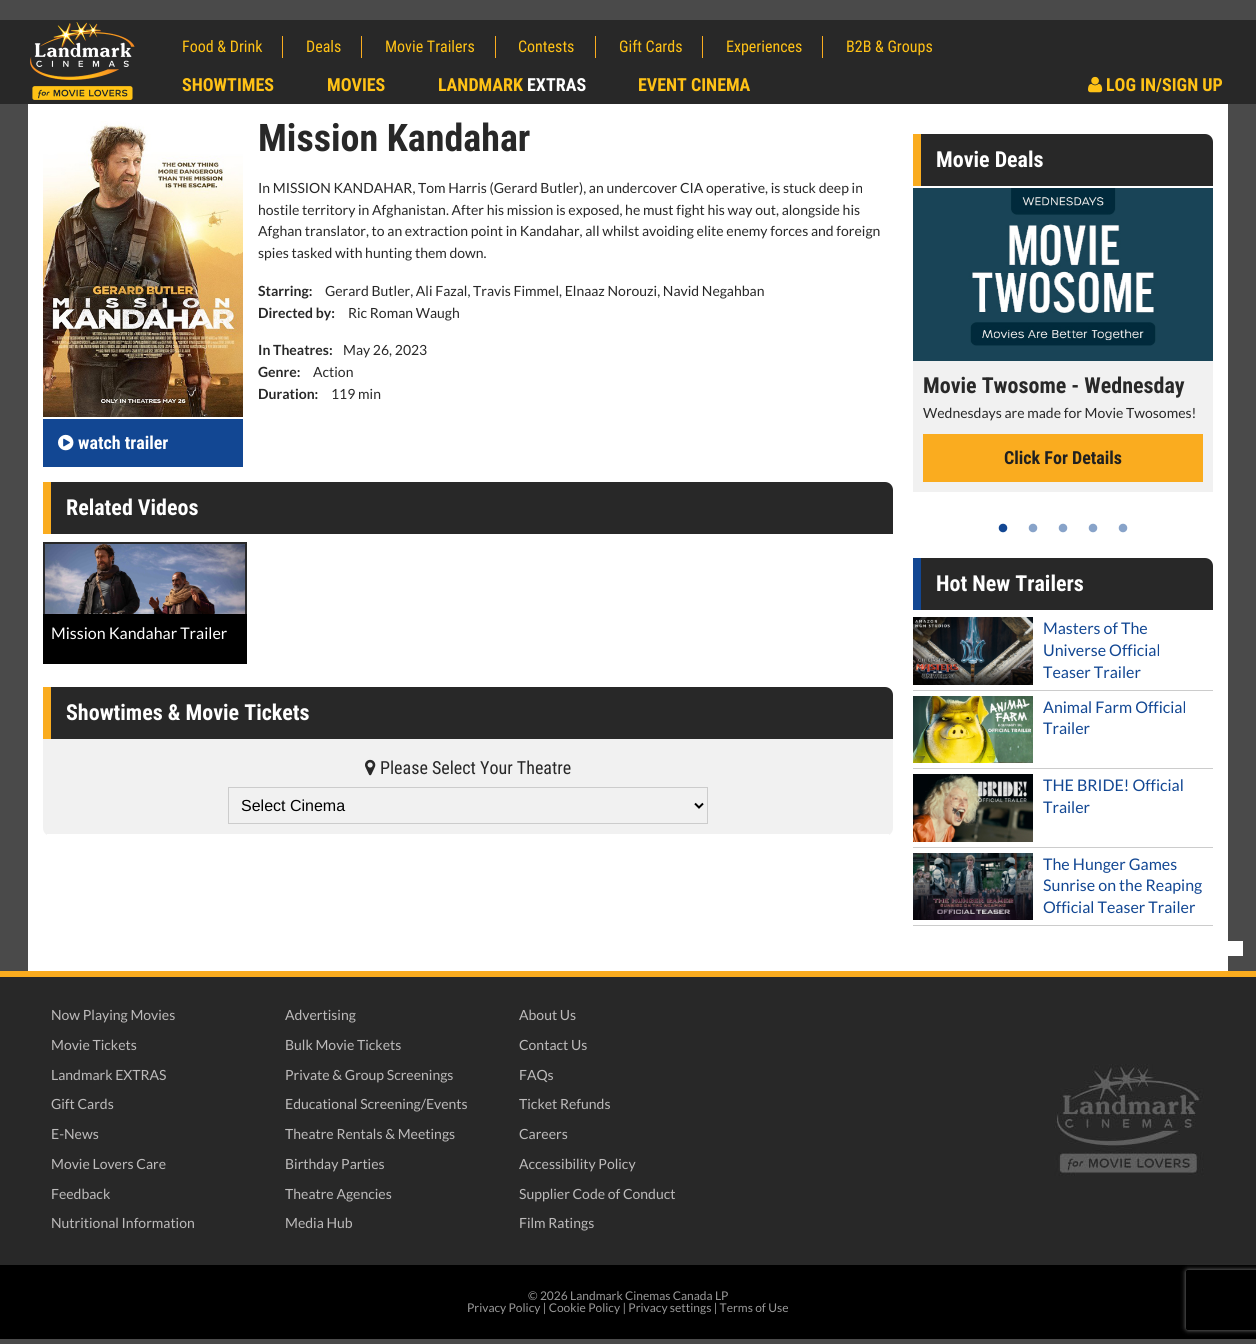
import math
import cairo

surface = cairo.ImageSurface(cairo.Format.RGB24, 1256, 1344)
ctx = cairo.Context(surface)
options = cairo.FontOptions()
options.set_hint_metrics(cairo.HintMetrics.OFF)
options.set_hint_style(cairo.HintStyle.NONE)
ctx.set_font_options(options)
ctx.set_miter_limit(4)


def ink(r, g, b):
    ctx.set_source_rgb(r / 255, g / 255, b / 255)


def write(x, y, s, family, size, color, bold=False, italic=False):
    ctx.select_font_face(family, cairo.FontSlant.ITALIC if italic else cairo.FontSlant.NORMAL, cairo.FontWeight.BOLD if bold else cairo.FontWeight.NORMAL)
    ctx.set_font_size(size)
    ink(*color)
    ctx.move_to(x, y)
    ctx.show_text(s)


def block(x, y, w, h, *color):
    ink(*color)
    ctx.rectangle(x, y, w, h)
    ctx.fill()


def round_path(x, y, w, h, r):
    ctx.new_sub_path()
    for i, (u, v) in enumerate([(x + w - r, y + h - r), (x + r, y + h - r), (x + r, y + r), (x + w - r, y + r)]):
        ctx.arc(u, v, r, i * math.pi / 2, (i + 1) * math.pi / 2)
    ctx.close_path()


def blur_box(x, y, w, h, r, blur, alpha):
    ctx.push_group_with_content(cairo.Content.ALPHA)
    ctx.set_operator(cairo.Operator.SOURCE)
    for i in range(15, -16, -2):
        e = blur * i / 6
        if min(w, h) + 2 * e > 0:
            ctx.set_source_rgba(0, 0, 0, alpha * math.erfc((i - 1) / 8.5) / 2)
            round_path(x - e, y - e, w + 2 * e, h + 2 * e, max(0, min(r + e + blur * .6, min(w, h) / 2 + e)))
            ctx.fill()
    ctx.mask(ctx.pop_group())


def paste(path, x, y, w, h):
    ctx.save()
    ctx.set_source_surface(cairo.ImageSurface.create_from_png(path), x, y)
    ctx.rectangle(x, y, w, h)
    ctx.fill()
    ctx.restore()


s1 = dict(family="Roboto Condensed", size=16, color=(255, 194, 22))
s2 = dict(family="Roboto Condensed", size=18, color=(255, 194, 22), bold=True)
s3 = dict(family="Roboto Condensed", size=18, color=(255, 255, 255), bold=True)
s4 = dict(family="Roboto Condensed", size=38, color=(40, 40, 40), bold=True)
s5 = dict(family="Lato", size=14, color=(40, 40, 40))
s6 = dict(family="Lato", size=14, color=(40, 40, 40), bold=True)
s7 = dict(family="Roboto Condensed", size=22, color=(255, 255, 255), bold=True)
s8 = dict(family="Lato", size=16, color=(255, 255, 255))
s9 = dict(family="Roboto Condensed", size=18, color=(40, 40, 40))
s10 = dict(family="Liberation Sans", size=16, color=(0, 0, 0))
s11 = dict(family="Roboto Condensed", size=22, color=(40, 40, 40), bold=True)
s12 = dict(family="Roboto Condensed", size=18, color=(32, 32, 32), bold=True)
s13 = dict(family="Lato", size=16, color=(18, 71, 147))
s14 = dict(family="Lato", size=14, color=(189, 187, 187))
s15 = dict(family="Lato", size=12, color=(153, 153, 153))

ink(74, 74, 74)
ctx.paint()
block(0, 20, 1256, 84, 40, 40, 40)
paste("pic1.png", 30, 22, 105, 78)
block(282, 36, 1, 22, 250, 172, 31)
write(182, 52, "Food & Drink", **s1)
block(361, 36, 1, 22, 250, 172, 31)
write(306, 52, "Deals", **s1)
block(495, 36, 1, 22, 250, 172, 31)
write(385, 52, "Movie Trailers", **s1)
block(595, 36, 1, 22, 250, 172, 31)
write(518, 52, "Contests", **s1)
block(702, 36, 1, 22, 250, 172, 31)
write(619, 52, "Gift Cards", **s1)
block(822, 36, 1, 22, 250, 172, 31)
write(726, 52, "Experiences", **s1)
write(846, 52, "B2B & Groups", **s1)
write(182, 91, "SHOWTIMES", **s2)
write(327, 91, "MOVIES", **s2)
write(438, 91, "LANDMARK", **s2)
write(527, 91, "EXTRAS", **s3)
write(638, 91, "EVENT CINEMA", **s2)
paste("pic2.png", 1088, 76, 15, 17)
write(1106, 91, "LOG IN/SIGN UP", **s2)
block(28, 104, 1200, 867, 255, 255, 255)
write(258, 151, "Mission Kandahar", **s4)
write(258, 193, "In MISSION KANDAHAR, Tom Harris (Gerard Butler), an undercover CIA operative, is stuck deep in", **s5)
write(258, 215, "hostile territory in Afghanistan. After his mission is exposed, he must fight his way out, alongside his", **s5)
write(258, 236, "Afghan translator, to an extraction point in Kandahar, all whilst avoiding elite enemy forces and foreign", **s5)
write(258, 258, "spies tasked with hunting them down.", **s5)
write(258, 296, "Starring:", **s6)
write(325, 296, "Gerard Butler, Ali Fazal, Travis Fimmel, Elnaaz Norouzi, Navid Negahban", **s5)
write(258, 318, "Directed by:", **s6)
write(348, 318, "Ric Roman Waugh", **s5)
write(258, 355, "In Theatres:", **s6)
write(343, 355, "May 26, 2023", **s5)
write(258, 377, "Genre:", **s6)
write(313, 377, "Action", **s5)
write(258, 399, "Duration:", **s6)
write(331, 399, "119 min", **s5)
paste("pic3.png", 43, 121, 200, 296)
block(43, 419, 200, 48, 18, 71, 147)
paste("pic4.png", 58, 434, 16, 17)
write(78, 449, "watch trailer", **s3)
ink(40, 40, 40)
ctx.new_path()
ctx.move_to(43, 482)
ctx.line_to(885, 482)
ctx.curve_to(889.5, 482, 893, 485.5, 893, 490)
ctx.line_to(893, 534)
ctx.line_to(43, 534)
ctx.close_path()
ctx.fill()
block(43, 482, 8, 52, 250, 172, 31)
write(66, 515, "Related Videos", **s7)
ctx.rectangle(44, 543, 202, 115)
ink(40, 40, 40)
ctx.stroke()
paste("pic5.png", 45, 544, 200, 70)
block(43, 614, 204, 50, 0, 0, 0)
write(51, 639, "Mission Kandahar Trailer", **s8)
ink(40, 40, 40)
ctx.new_path()
ctx.move_to(43, 687)
ctx.line_to(885, 687)
ctx.curve_to(889.5, 687, 893, 690.5, 893, 695)
ctx.line_to(893, 739)
ctx.line_to(43, 739)
ctx.close_path()
ctx.fill()
block(43, 687, 8, 52, 250, 172, 31)
write(66, 720, "Showtimes & Movie Tickets", **s7)
ink(241, 241, 241)
ctx.new_path()
ctx.move_to(43, 739)
ctx.line_to(893, 739)
ctx.line_to(893, 828)
ctx.curve_to(893, 832.5, 889.5, 836, 885, 836)
ctx.line_to(51, 836)
ctx.curve_to(46.5, 836, 43, 832.5, 43, 828)
ctx.close_path()
ctx.fill()
block(47, 834, 842, 2, 255, 255, 255)
paste("pic6.png", 365, 759, 11, 17)
write(380, 774, "Please Select Your Theatre", **s9)
ctx.rectangle(228.5, 787.5, 479, 36)
ink(204, 204, 204)
ctx.set_line_width(1)
ctx.stroke()
ctx.new_path()
ctx.move_to(695, 803.5)
ctx.line_to(699, 807.5)
ctx.line_to(703, 803.5)
ink(0, 0, 0)
ctx.set_line_width(2)
ctx.stroke()
write(241, 811, "Select Cinema", **s10)
ink(40, 40, 40)
ctx.new_path()
ctx.move_to(913, 134)
ctx.line_to(1205, 134)
ctx.curve_to(1209.5, 134, 1213, 137.5, 1213, 142)
ctx.line_to(1213, 186)
ctx.line_to(913, 186)
ctx.close_path()
ctx.fill()
block(913, 134, 8, 52, 250, 172, 31)
write(936, 167, "Movie Deals", **s7)
block(913, 361, 300, 131, 241, 241, 241)
paste("pic7.png", 913, 188, 300, 173)
write(923, 393, "Movie Twosome - Wednesday", **s11)
write(923, 418, "Wednesdays are made for Movie Twosomes!", **s5)
block(923, 434, 280, 48, 250, 172, 31)
write(1004, 464, "Click For Details", **s12)
paste("pic8.png", 998, 523, 10, 10)
paste("pic9.png", 1028, 523, 10, 10)
paste("pic9.png", 1058, 523, 10, 10)
paste("pic9.png", 1088, 523, 10, 10)
paste("pic9.png", 1118, 523, 10, 10)
ink(40, 40, 40)
ctx.new_path()
ctx.move_to(913, 558)
ctx.line_to(1205, 558)
ctx.curve_to(1209.5, 558, 1213, 561.5, 1213, 566)
ctx.line_to(1213, 610)
ctx.line_to(913, 610)
ctx.close_path()
ctx.fill()
block(913, 558, 8, 52, 18, 71, 147)
write(936, 591, "Hot New Trailers", **s7)
block(913, 690, 300, 1, 204, 204, 204)
paste("pic10.png", 913, 617, 120, 68)
write(1043, 634, "Masters of The", **s13)
write(1043, 656, "Universe Official", **s13)
write(1043, 678, "Teaser Trailer", **s13)
block(913, 768, 300, 1, 204, 204, 204)
paste("pic11.png", 913, 696, 120, 67)
write(1043, 713, "Animal Farm Official", **s13)
write(1043, 734, "Trailer", **s13)
block(913, 847, 300, 1, 204, 204, 204)
paste("pic12.png", 913, 774, 120, 68)
write(1043, 791, "THE BRIDE! Official", **s13)
write(1043, 813, "Trailer", **s13)
block(913, 925, 300, 1, 204, 204, 204)
paste("pic13.png", 913, 853, 120, 67)
write(1043, 870, "The Hunger Games", **s13)
write(1043, 891, "Sunrise on the Reaping", **s13)
write(1043, 913, "Official Teaser Trailer", **s13)
block(1228, 941, 15, 15, 255, 255, 255)
block(0, 977, 1256, 288, 40, 40, 40)
block(0, 971, 1256, 6, 250, 172, 31)
paste("pic14.png", 1054, 1064, 150, 112)
write(51, 1020, "Now Playing Movies", **s14)
write(51, 1050, "Movie Tickets", **s14)
write(51, 1080, "Landmark EXTRAS", **s14)
write(51, 1109, "Gift Cards", **s14)
write(51, 1139, "E-News", **s14)
write(51, 1169, "Movie Lovers Care", **s14)
write(51, 1199, "Feedback", **s14)
write(51, 1228, "Nutritional Information", **s14)
write(285, 1020, "Advertising", **s14)
write(285, 1050, "Bulk Movie Tickets", **s14)
write(285, 1080, "Private & Group Screenings", **s14)
write(285, 1109, "Educational Screening/Events", **s14)
write(285, 1139, "Theatre Rentals & Meetings", **s14)
write(285, 1169, "Birthday Parties", **s14)
write(285, 1199, "Theatre Agencies", **s14)
write(285, 1228, "Media Hub", **s14)
write(519, 1020, "About Us", **s14)
write(519, 1050, "Contact Us", **s14)
write(519, 1080, "FAQs", **s14)
write(519, 1109, "Ticket Refunds", **s14)
write(519, 1139, "Careers", **s14)
write(519, 1169, "Accessibility Policy", **s14)
write(519, 1199, "Supplier Code of Conduct", **s14)
write(519, 1228, "Film Ratings", **s14)
block(0, 1265, 1256, 74, 0, 0, 0)
write(528, 1300, "© 2026 Landmark Cinemas Canada LP", **s15)
write(467, 1312, "Privacy Policy | Cookie Policy | Privacy settings | Terms of Use", **s15)
ctx.save()
ctx.set_fill_rule(cairo.FillRule.EVEN_ODD)
ctx.new_path()
ctx.move_to(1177, 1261)
ctx.line_to(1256, 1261)
ctx.line_to(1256, 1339)
ctx.line_to(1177, 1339)
ctx.close_path()
ctx.move_to(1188, 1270)
ctx.line_to(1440, 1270)
ctx.curve_to(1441, 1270, 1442, 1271, 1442, 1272)
ctx.line_to(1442, 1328)
ctx.curve_to(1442, 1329, 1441, 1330, 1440, 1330)
ctx.line_to(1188, 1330)
ctx.curve_to(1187, 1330, 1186, 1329, 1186, 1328)
ctx.line_to(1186, 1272)
ctx.curve_to(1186, 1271, 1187, 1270, 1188, 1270)
ctx.close_path()
ctx.clip()
ink(128, 128, 128)
blur_box(1186, 1270, 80, 60, 2, 2.5, 1)
ctx.restore()
surface.write_to_png("screenshot.png")
